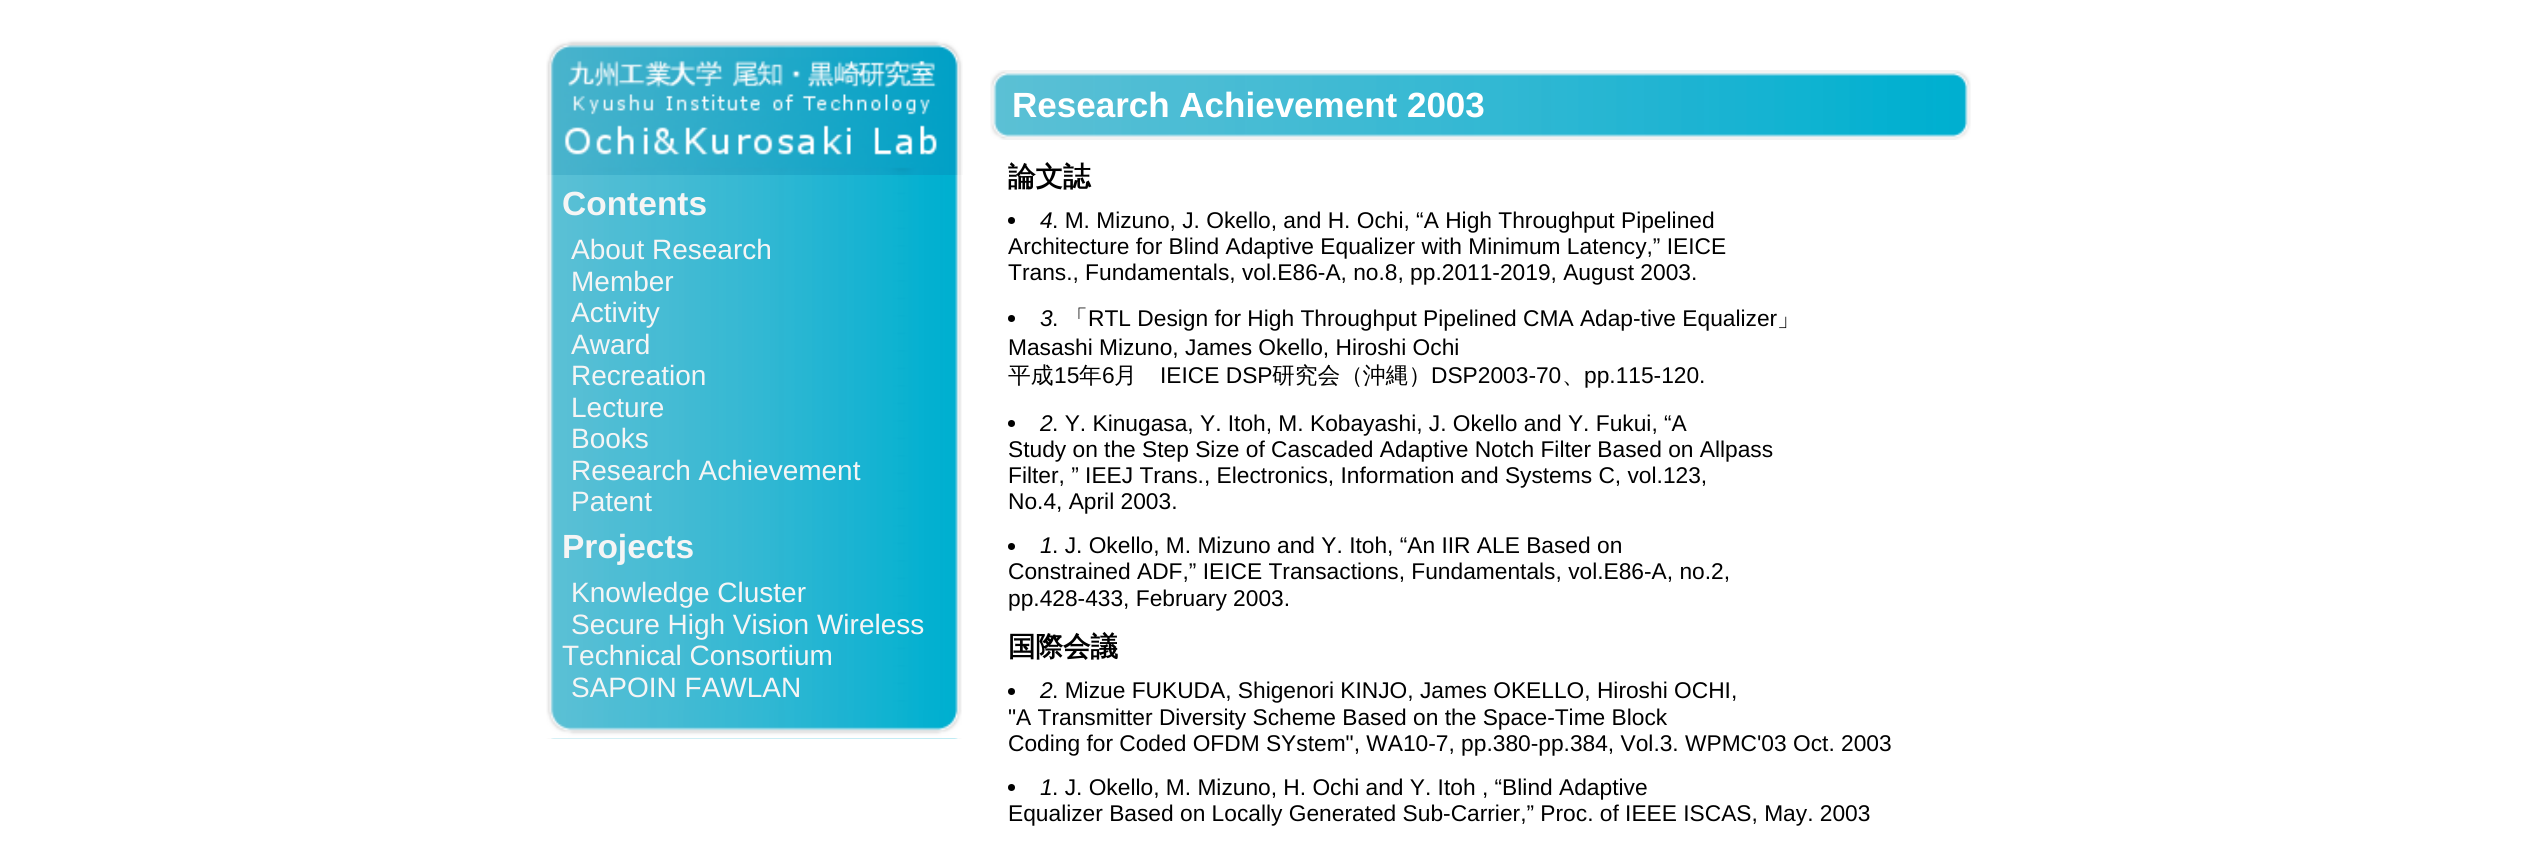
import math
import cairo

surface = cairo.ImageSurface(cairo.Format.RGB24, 2522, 857)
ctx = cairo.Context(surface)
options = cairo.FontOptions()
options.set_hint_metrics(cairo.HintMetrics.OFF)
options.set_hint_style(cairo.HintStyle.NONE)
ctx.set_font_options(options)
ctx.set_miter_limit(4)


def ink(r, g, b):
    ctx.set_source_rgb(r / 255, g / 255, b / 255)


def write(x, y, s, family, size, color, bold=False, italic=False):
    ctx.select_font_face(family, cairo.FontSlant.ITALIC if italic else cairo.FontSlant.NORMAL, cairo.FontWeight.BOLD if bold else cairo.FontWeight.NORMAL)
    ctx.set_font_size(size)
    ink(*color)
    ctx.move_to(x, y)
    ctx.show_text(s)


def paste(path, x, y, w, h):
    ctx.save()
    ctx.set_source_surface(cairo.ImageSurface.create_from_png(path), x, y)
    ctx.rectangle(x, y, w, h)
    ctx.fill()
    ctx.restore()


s1 = dict(family="Liberation Sans", size=33.5, color=(245, 245, 245), bold=True)
s2 = dict(family="Liberation Sans", size=28, color=(245, 245, 245))
s3 = dict(family="Liberation Sans", size=35, color=(255, 255, 255), bold=True)
s4 = dict(family="WenQuanYi Zen Hei", size=27.5, color=(0, 0, 0), bold=True)
s5 = dict(family="Liberation Sans", size=22.75, color=(0, 0, 0), italic=True)
s6 = dict(family="Liberation Sans", size=22.75, color=(0, 0, 0))
s7 = dict(family="WenQuanYi Zen Hei Medium", size=22.75, color=(0, 0, 0))

ink(255, 255, 255)
ctx.paint()
paste("pic1.png", 546, 175, 416, 564)
paste("pic2.png", 546, 35, 417, 140)
write(562, 215, "Contents", **s1)
write(571, 259, "About Research", **s2)
write(571, 291, "Member", **s2)
write(571, 322, "Activity", **s2)
write(571, 354, "Award", **s2)
write(571, 385, "Recreation", **s2)
write(571, 417, "Lecture", **s2)
write(571, 448, "Books", **s2)
write(571, 480, "Research Achievement", **s2)
write(571, 511, "Patent", **s2)
write(562, 558, "Projects", **s1)
write(571, 602, "Knowledge Cluster", **s2)
write(571, 634, "Secure High Vision Wireless", **s2)
write(562, 665, "Technical Consortium", **s2)
write(571, 697, "SAPOIN FAWLAN", **s2)
paste("pic3.png", 546, 710, 416, 29)
paste("pic4.png", 990, 70, 981, 70)
write(1012, 117, "Research Achievement 2003", **s3)
write(1008, 186, "論文誌", **s4)
ctx.new_path()
ctx.arc(1011.5, 220.5, 3.5, 0, 2 * math.pi)
ctx.fill()
write(1040, 228, "4", **s5)
write(1052, 228, ". M. Mizuno, J. Okello, and H. Ochi, “A High Throughput Pipelined", **s6)
write(1008, 254, "Architecture for Blind Adaptive Equalizer with Minimum Latency,” IEICE", **s6)
write(1008, 280, "Trans., Fundamentals, vol.E86-A, no.8, pp.2011-2019, August 2003.", **s6)
ctx.new_path()
ctx.arc(1011.5, 318.5, 3.5, 0, 2 * math.pi)
ctx.fill()
write(1040, 326, "3", **s5)
write(1052, 326, ".", **s6)
write(1065, 326, "「", **s7)
write(1088, 326, "RTL Design for High Throughput Pipelined CMA Adap-tive Equalizer", **s6)
write(1777, 326, "」", **s7)
write(1008, 355, "Masashi Mizuno, James Okello, Hiroshi Ochi", **s6)
write(1008, 383, "平成", **s7)
write(1054, 383, "15", **s6)
write(1079, 383, "年", **s7)
write(1102, 383, "6", **s6)
write(1114, 383, "月", **s7)
write(1160, 383, "IEICE DSP", **s6)
write(1272, 383, "研究会（沖縄）", **s7)
write(1431, 383, "DSP2003-70", **s6)
write(1562, 383, "、", **s7)
write(1584, 383, "pp.115-120.", **s6)
ctx.new_path()
ctx.arc(1011.5, 423.5, 3.5, 0, 2 * math.pi)
ctx.fill()
write(1040, 431, "2", **s5)
write(1052, 431, ". Y. Kinugasa, Y. Itoh, M. Kobayashi, J. Okello and Y. Fukui, “A", **s6)
write(1008, 457, "Study on the Step Size of Cascaded Adaptive Notch Filter Based on Allpass", **s6)
write(1008, 483, "Filter, ” IEEJ Trans., Electronics, Information and Systems C, vol.123,", **s6)
write(1008, 509, "No.4, April 2003.", **s6)
ctx.new_path()
ctx.arc(1011.5, 546.5, 3.5, 0, 2 * math.pi)
ctx.fill()
write(1040, 553, "1", **s5)
write(1052, 553, ". J. Okello, M. Mizuno and Y. Itoh, “An IIR ALE Based on", **s6)
write(1008, 579, "Constrained ADF,” IEICE Transactions, Fundamentals, vol.E86-A, no.2,", **s6)
write(1008, 606, "pp.428-433, February 2003.", **s6)
write(1008, 656, "国際会議", **s4)
ctx.new_path()
ctx.arc(1011.5, 691.5, 3.5, 0, 2 * math.pi)
ctx.fill()
write(1040, 698, "2", **s5)
write(1052, 698, ". Mizue FUKUDA, Shigenori KINJO, James OKELLO, Hiroshi OCHI,", **s6)
write(1008, 725, "\"A Transmitter Diversity Scheme Based on the Space-Time Block", **s6)
write(1008, 751, "Coding for Coded OFDM SYstem\", WA10-7, pp.380-pp.384, Vol.3. WPMC'03 Oct. 2003", **s6)
ctx.new_path()
ctx.arc(1011.5, 787.5, 3.5, 0, 2 * math.pi)
ctx.fill()
write(1040, 795, "1", **s5)
write(1052, 795, ". J. Okello, M. Mizuno, H. Ochi and Y. Itoh , “Blind Adaptive", **s6)
write(1008, 821, "Equalizer Based on Locally Generated Sub-Carrier,” Proc. of IEEE ISCAS, May. 2003", **s6)
surface.write_to_png("screenshot.png")
